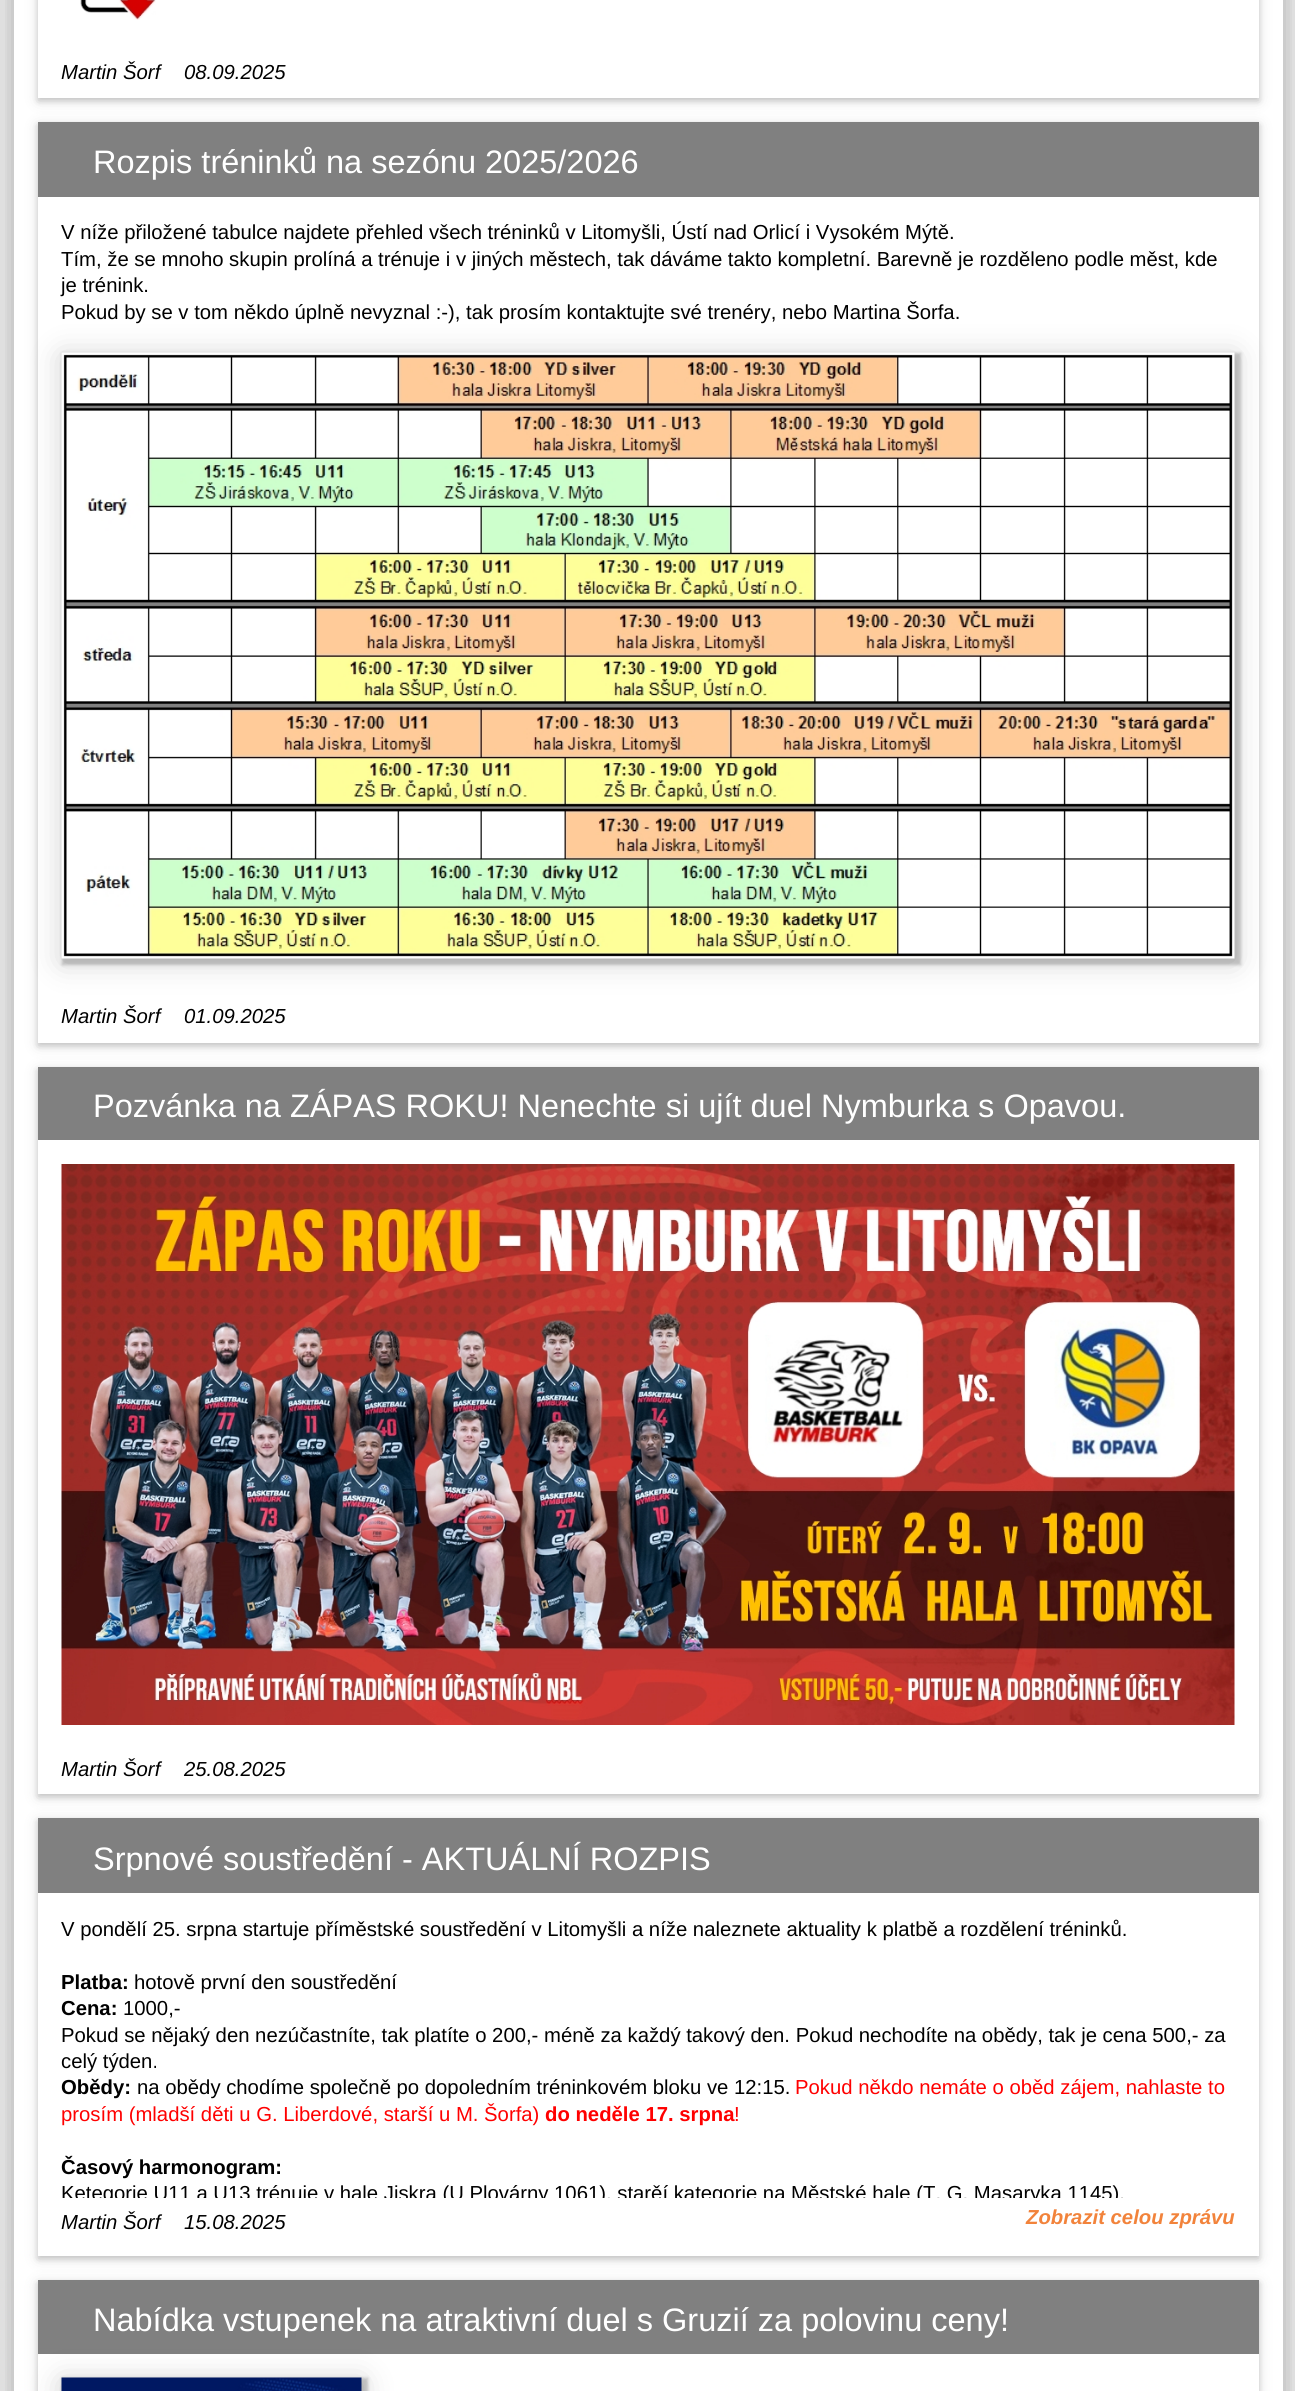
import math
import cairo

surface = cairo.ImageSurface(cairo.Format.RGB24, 1295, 2391)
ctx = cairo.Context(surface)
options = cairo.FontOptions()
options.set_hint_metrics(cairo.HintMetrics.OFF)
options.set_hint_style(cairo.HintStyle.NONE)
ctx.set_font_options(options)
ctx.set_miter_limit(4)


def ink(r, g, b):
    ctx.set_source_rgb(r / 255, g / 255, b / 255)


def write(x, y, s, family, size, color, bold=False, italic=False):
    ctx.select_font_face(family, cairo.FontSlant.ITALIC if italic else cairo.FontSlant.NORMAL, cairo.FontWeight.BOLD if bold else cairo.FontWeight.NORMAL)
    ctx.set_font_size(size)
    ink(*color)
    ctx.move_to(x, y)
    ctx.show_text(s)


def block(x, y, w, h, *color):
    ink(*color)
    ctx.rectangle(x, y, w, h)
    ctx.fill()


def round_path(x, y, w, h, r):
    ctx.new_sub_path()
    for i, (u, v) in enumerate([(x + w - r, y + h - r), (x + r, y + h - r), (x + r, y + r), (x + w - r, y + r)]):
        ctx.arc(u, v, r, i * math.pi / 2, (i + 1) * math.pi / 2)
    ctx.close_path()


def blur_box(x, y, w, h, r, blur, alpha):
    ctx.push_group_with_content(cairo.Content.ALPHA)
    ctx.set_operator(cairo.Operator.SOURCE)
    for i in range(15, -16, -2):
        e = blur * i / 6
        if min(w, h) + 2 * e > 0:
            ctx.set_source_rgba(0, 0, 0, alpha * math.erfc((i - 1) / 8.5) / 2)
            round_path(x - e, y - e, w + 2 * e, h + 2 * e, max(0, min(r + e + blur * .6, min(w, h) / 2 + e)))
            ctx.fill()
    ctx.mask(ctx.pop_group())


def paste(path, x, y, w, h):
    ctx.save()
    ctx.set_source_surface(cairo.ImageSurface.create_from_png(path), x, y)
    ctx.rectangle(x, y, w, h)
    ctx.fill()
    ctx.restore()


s1 = dict(family="Liberation Sans", size=20.3, color=(0, 0, 0), italic=True)
s2 = dict(family="Liberation Sans", size=32.5, color=(255, 255, 255))
s3 = dict(family="Liberation Sans", size=20.3, color=(0, 0, 0))
s4 = dict(family="Liberation Sans", size=20.3, color=(0, 0, 0), bold=True)
s5 = dict(family="Liberation Sans", size=20.3, color=(255, 0, 0))
s6 = dict(family="Liberation Sans", size=20.3, color=(255, 0, 0), bold=True)
s7 = dict(family="Liberation Sans", size=20.3, color=(242, 131, 59), bold=True, italic=True)

ink(255, 255, 255)
ctx.paint()
ink(0, 0, 0)
blur_box(14, -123, 1269, 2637, 0, 41, 0.21)
blur_box(14, -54, 1269, 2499, 0, 18, 0.22)
block(14, 0, 1269, 2391, 255, 255, 255)
ctx.save()
ctx.set_fill_rule(cairo.FillRule.EVEN_ODD)
ctx.new_path()
ctx.move_to(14, 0)
ctx.line_to(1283, 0)
ctx.line_to(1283, 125)
ctx.line_to(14, 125)
ctx.close_path()
ctx.move_to(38, -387)
ctx.line_to(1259, -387)
ctx.line_to(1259, 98)
ctx.line_to(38, 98)
ctx.close_path()
ctx.clip()
ink(0, 0, 0)
blur_box(38, -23, 1221, 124, 0, 7.5, 0.12)
ctx.restore()
ctx.save()
ctx.set_fill_rule(cairo.FillRule.EVEN_ODD)
ctx.new_path()
ctx.move_to(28, 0)
ctx.line_to(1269, 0)
ctx.line_to(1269, 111)
ctx.line_to(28, 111)
ctx.close_path()
ctx.move_to(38, -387)
ctx.line_to(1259, -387)
ctx.line_to(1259, 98)
ctx.line_to(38, 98)
ctx.close_path()
ctx.clip()
ink(0, 0, 0)
blur_box(38, -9, 1221, 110, 0, 3, 0.16)
ctx.restore()
paste("pic1.png", 80, 0, 76, 20)
write(61, 79, "Martin Šorf", **s1)
write(184, 79, "08.09.2025", **s1)
ctx.save()
ctx.set_fill_rule(cairo.FillRule.EVEN_ODD)
ctx.new_path()
ctx.move_to(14, 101)
ctx.line_to(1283, 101)
ctx.line_to(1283, 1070)
ctx.line_to(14, 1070)
ctx.close_path()
ctx.move_to(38, 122)
ctx.line_to(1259, 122)
ctx.line_to(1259, 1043)
ctx.line_to(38, 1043)
ctx.close_path()
ctx.clip()
ink(0, 0, 0)
blur_box(38, 125, 1221, 921, 0, 7.5, 0.12)
ctx.restore()
ctx.save()
ctx.set_fill_rule(cairo.FillRule.EVEN_ODD)
ctx.new_path()
ctx.move_to(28, 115)
ctx.line_to(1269, 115)
ctx.line_to(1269, 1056)
ctx.line_to(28, 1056)
ctx.close_path()
ctx.move_to(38, 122)
ctx.line_to(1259, 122)
ctx.line_to(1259, 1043)
ctx.line_to(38, 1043)
ctx.close_path()
ctx.clip()
ink(0, 0, 0)
blur_box(38, 125, 1221, 921, 0, 3, 0.16)
ctx.restore()
block(38, 122, 1221, 75, 128, 128, 128)
write(93, 173, "Rozpis tréninků na sezónu 2025/2026", **s2)
write(61, 239, "V níže přiložené tabulce najdete přehled všech tréninků v Litomyšli, Ústí nad Orlicí i Vysokém Mýtě.", **s3)
write(61, 266, "Tím, že se mnoho skupin prolíná a trénuje i v jiných městech, tak dáváme takto kompletní. Barevně je rozděleno podle měst, kde", **s3)
write(61, 292, "je trénink.", **s3)
write(61, 319, "Pokud by se v tom někdo úplně nevyznal :-), tak prosím kontaktujte své trenéry, nebo Martina Šorfa.", **s3)
ink(0, 0, 0)
blur_box(62, 356, 1173, 606, 0, 15, 0.19)
blur_box(62, 353, 1179, 612, 0, 1.5, 0.2)
paste("pic2.png", 61, 352, 1174, 607)
write(61, 1023, "Martin Šorf", **s1)
write(184, 1023, "01.09.2025", **s1)
ctx.save()
ctx.set_fill_rule(cairo.FillRule.EVEN_ODD)
ctx.new_path()
ctx.move_to(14, 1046)
ctx.line_to(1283, 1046)
ctx.line_to(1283, 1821)
ctx.line_to(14, 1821)
ctx.close_path()
ctx.move_to(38, 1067)
ctx.line_to(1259, 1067)
ctx.line_to(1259, 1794)
ctx.line_to(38, 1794)
ctx.close_path()
ctx.clip()
ink(0, 0, 0)
blur_box(38, 1070, 1221, 727, 0, 7.5, 0.12)
ctx.restore()
ctx.save()
ctx.set_fill_rule(cairo.FillRule.EVEN_ODD)
ctx.new_path()
ctx.move_to(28, 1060)
ctx.line_to(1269, 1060)
ctx.line_to(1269, 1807)
ctx.line_to(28, 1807)
ctx.close_path()
ctx.move_to(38, 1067)
ctx.line_to(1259, 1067)
ctx.line_to(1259, 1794)
ctx.line_to(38, 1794)
ctx.close_path()
ctx.clip()
ink(0, 0, 0)
blur_box(38, 1070, 1221, 727, 0, 3, 0.16)
ctx.restore()
block(38, 1067, 1221, 73, 128, 128, 128)
write(93, 1117, "Pozvánka na ZÁPAS ROKU! Nenechte si ujít duel Nymburka s Opavou.", **s2)
paste("pic3.png", 61, 1164, 1174, 561)
write(61, 1776, "Martin Šorf", **s1)
write(184, 1776, "25.08.2025", **s1)
ctx.save()
ctx.set_fill_rule(cairo.FillRule.EVEN_ODD)
ctx.new_path()
ctx.move_to(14, 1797)
ctx.line_to(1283, 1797)
ctx.line_to(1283, 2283)
ctx.line_to(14, 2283)
ctx.close_path()
ctx.move_to(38, 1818)
ctx.line_to(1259, 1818)
ctx.line_to(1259, 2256)
ctx.line_to(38, 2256)
ctx.close_path()
ctx.clip()
ink(0, 0, 0)
blur_box(38, 1821, 1221, 438, 0, 7.5, 0.12)
ctx.restore()
ctx.save()
ctx.set_fill_rule(cairo.FillRule.EVEN_ODD)
ctx.new_path()
ctx.move_to(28, 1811)
ctx.line_to(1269, 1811)
ctx.line_to(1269, 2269)
ctx.line_to(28, 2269)
ctx.close_path()
ctx.move_to(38, 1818)
ctx.line_to(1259, 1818)
ctx.line_to(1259, 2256)
ctx.line_to(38, 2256)
ctx.close_path()
ctx.clip()
ink(0, 0, 0)
blur_box(38, 1821, 1221, 438, 0, 3, 0.16)
ctx.restore()
block(38, 1818, 1221, 75, 128, 128, 128)
write(93, 1870, "Srpnové soustředění - AKTUÁLNÍ ROZPIS", **s2)
write(61, 1936, "V pondělí 25. srpna startuje příměstské soustředění v Litomyšli a níže naleznete aktuality k platbě a rozdělení tréninků.", **s3)
write(61, 1989, "Platba:", **s4)
write(134, 1989, "hotově první den soustředění", **s3)
write(61, 2015, "Cena:", **s4)
write(123, 2015, "1000,-", **s3)
write(61, 2042, "Pokud se nějaký den nezúčastníte, tak platíte o 200,- méně za každý takový den. Pokud nechodíte na obědy, tak je cena 500,- za", **s3)
write(61, 2068, "celý týden.", **s3)
write(61, 2094, "Obědy:", **s4)
write(137, 2094, "na obědy chodíme společně po dopoledním tréninkovém bloku ve 12:15.", **s3)
write(795, 2094, "Pokud někdo nemáte o oběd zájem, nahlaste to", **s5)
write(61, 2121, "prosím (mladší děti u G. Liberdové, starší u M. Šorfa)", **s5)
write(545, 2121, "do neděle 17. srpna", **s6)
write(734, 2121, "!", **s5)
write(61, 2174, "Časový harmonogram:", **s4)
ctx.save()
ctx.rectangle(38, 1893, 1221, 305)
ctx.clip()
write(61, 2200, "Ketegorie U11 a U13 trénuje v hale Jiskra (U Plovárny 1061), starěí kategorie na Městské hale (T. G. Masaryka 1145).", **s3)
ctx.restore()
write(61, 2229, "Martin Šorf", **s1)
write(184, 2229, "15.08.2025", **s1)
write(1026, 2224, "Zobrazit celou zprávu", **s7)
ctx.save()
ctx.set_fill_rule(cairo.FillRule.EVEN_ODD)
ctx.new_path()
ctx.move_to(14, 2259)
ctx.line_to(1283, 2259)
ctx.line_to(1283, 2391)
ctx.line_to(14, 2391)
ctx.close_path()
ctx.move_to(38, 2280)
ctx.line_to(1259, 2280)
ctx.line_to(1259, 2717)
ctx.line_to(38, 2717)
ctx.close_path()
ctx.clip()
ink(0, 0, 0)
blur_box(38, 2283, 1221, 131, 0, 7.5, 0.12)
ctx.restore()
ctx.save()
ctx.set_fill_rule(cairo.FillRule.EVEN_ODD)
ctx.new_path()
ctx.move_to(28, 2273)
ctx.line_to(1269, 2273)
ctx.line_to(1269, 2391)
ctx.line_to(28, 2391)
ctx.close_path()
ctx.move_to(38, 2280)
ctx.line_to(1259, 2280)
ctx.line_to(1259, 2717)
ctx.line_to(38, 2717)
ctx.close_path()
ctx.clip()
ink(0, 0, 0)
blur_box(38, 2283, 1221, 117, 0, 3, 0.16)
ctx.restore()
block(38, 2280, 1221, 74, 128, 128, 128)
write(93, 2331, "Nabídka vstupenek na atraktivní duel s Gruzií za polovinu ceny!", **s2)
ink(0, 0, 0)
blur_box(62, 2381, 300, 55, 0, 15, 0.19)
blur_box(62, 2378, 306, 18, 0, 1.5, 0.2)
paste("pic4.png", 61, 2377, 301, 14)
surface.write_to_png("screenshot.png")
